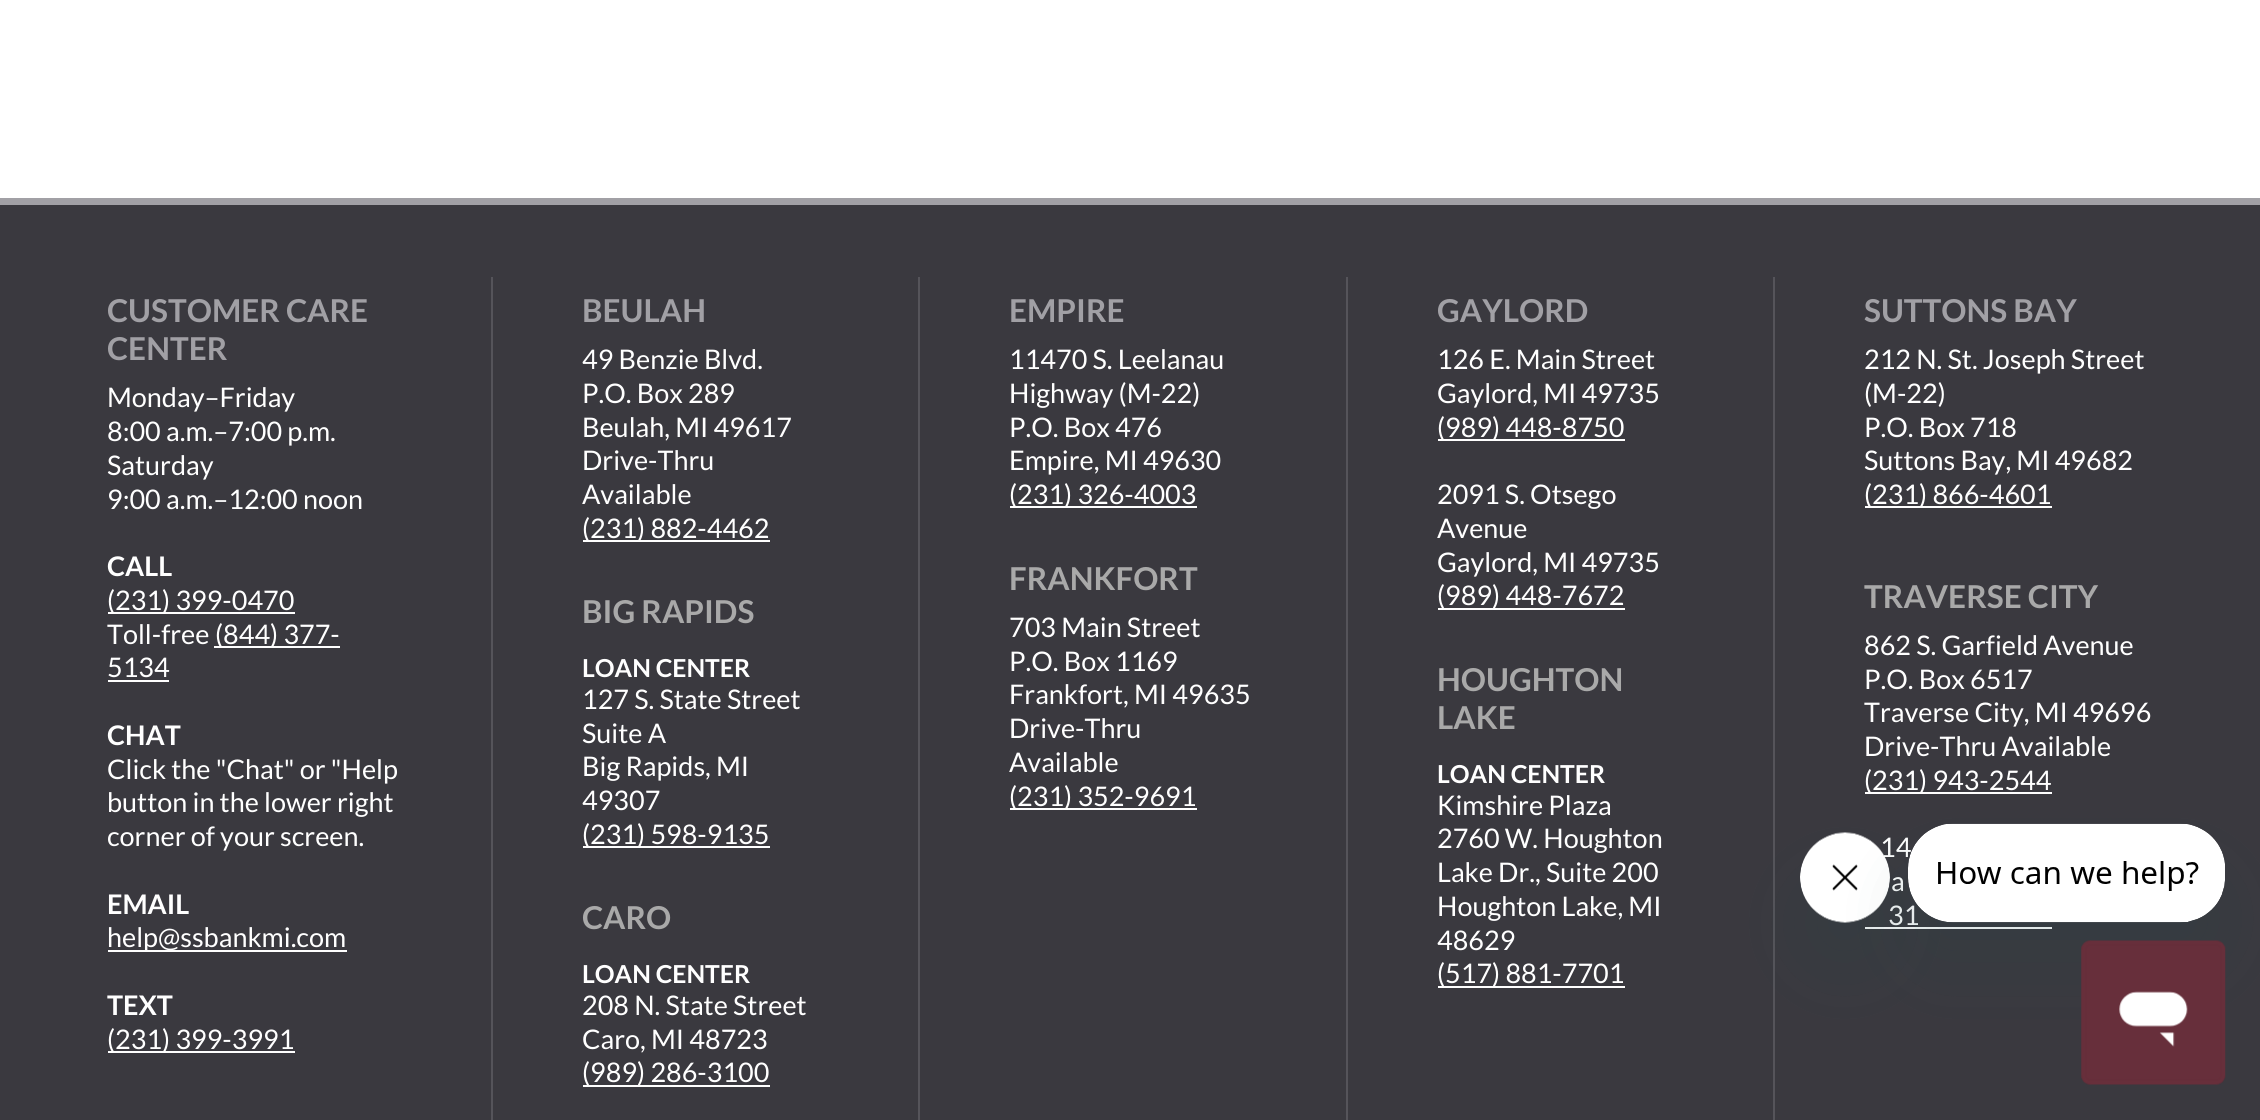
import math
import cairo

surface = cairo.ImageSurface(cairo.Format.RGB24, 2260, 1120)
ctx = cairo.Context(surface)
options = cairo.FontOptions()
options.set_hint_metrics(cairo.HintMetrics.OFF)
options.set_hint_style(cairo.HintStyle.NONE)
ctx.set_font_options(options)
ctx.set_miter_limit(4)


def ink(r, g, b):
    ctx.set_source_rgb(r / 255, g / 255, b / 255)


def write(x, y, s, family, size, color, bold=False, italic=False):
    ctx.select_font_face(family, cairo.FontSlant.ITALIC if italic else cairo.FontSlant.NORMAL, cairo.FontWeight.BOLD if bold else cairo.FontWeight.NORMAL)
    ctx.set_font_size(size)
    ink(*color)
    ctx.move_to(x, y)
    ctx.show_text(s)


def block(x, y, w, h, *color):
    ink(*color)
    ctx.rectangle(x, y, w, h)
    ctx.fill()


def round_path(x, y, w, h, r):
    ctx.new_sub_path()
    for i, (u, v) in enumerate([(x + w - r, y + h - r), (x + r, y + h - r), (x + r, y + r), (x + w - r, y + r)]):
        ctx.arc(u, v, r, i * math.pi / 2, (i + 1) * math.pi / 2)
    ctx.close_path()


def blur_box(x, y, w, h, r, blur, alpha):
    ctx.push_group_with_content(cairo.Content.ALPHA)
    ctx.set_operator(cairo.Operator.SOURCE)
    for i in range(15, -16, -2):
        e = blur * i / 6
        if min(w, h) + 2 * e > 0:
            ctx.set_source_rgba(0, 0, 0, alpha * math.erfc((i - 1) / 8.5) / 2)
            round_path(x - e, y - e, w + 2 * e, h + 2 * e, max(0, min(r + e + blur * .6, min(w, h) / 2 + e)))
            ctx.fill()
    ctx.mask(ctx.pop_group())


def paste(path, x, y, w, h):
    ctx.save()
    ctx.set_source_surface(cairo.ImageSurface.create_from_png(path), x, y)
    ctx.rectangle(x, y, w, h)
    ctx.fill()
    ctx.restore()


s1 = dict(family="Lato", size=31.5, color=(161, 160, 165), bold=True)
s2 = dict(family="Lato", size=27, color=(255, 255, 255))
s3 = dict(family="Lato", size=27, color=(255, 255, 255), bold=True)
s4 = dict(family="Lato", size=31.5, color=(169, 169, 169), bold=True)
s5 = dict(family="Lato", size=24.75, color=(255, 255, 255), bold=True)

ink(255, 255, 255)
ctx.paint()
block(0, 205, 2260, 915, 58, 57, 63)
block(0, 198, 2260, 7, 161, 160, 165)
write(107, 322, "CUSTOMER CARE", **s1)
write(107, 360, "CENTER", **s1)
write(107, 407, "Monday–Friday", **s2)
write(107, 441, "8:00 a.m.–7:00 p.m.", **s2)
write(107, 475, "Saturday", **s2)
write(107, 509, "9:00 a.m.–12:00 noon", **s2)
write(107, 576, "CALL", **s3)
block(108, 612, 187, 2, 255, 255, 255)
write(107, 610, "(231) 399-0470", **s2)
write(107, 644, "Toll-free", **s2)
block(214, 646, 126, 2, 255, 255, 255)
write(215, 644, "(844) 377-", **s2)
write(107, 677, "5134", **s2)
block(108, 680, 61, 2, 255, 255, 255)
write(107, 745, "CHAT", **s3)
write(107, 779, "Click the \"Chat\" or \"Help", **s2)
write(107, 812, "button in the lower right", **s2)
write(107, 846, "corner of your screen.", **s2)
write(107, 914, "EMAIL", **s3)
block(108, 950, 239, 2, 255, 255, 255)
write(107, 947, "help@ssbankmi.com", **s2)
write(107, 1015, "TEXT", **s3)
block(108, 1051, 187, 2, 255, 255, 255)
write(107, 1049, "(231) 399-3991", **s2)
block(491, 277, 2, 843, 85, 84, 90)
write(582, 322, "BEULAH", **s1)
write(582, 369, "49 Benzie Blvd.", **s2)
write(582, 403, "P.O. Box 289", **s2)
write(582, 437, "Beulah, MI 49617", **s2)
write(582, 470, "Drive-Thru", **s2)
write(582, 504, "Available", **s2)
block(583, 540, 187, 2, 255, 255, 255)
write(582, 538, "(231) 882-4462", **s2)
write(582, 623, "BIG RAPIDS", **s4)
write(582, 677, "LOAN CENTER", **s5)
write(582, 709, "127 S. State Street", **s2)
write(582, 743, "Suite A", **s2)
write(582, 776, "Big Rapids, MI", **s2)
write(582, 810, "49307", **s2)
block(583, 846, 187, 2, 255, 255, 255)
write(582, 844, "(231) 598-9135", **s2)
write(582, 929, "CARO", **s4)
write(582, 983, "LOAN CENTER", **s5)
write(582, 1015, "208 N. State Street", **s2)
write(582, 1049, "Caro, MI 48723", **s2)
block(583, 1085, 187, 2, 255, 255, 255)
write(582, 1082, "(989) 286-3100", **s2)
block(918, 277, 2, 843, 85, 84, 90)
write(1009, 322, "EMPIRE", **s1)
write(1009, 369, "11470 S. Leelanau", **s2)
write(1009, 403, "Highway (M-22)", **s2)
write(1009, 437, "P.O. Box 476", **s2)
write(1009, 470, "Empire, MI 49630", **s2)
block(1010, 506, 187, 2, 255, 255, 255)
write(1009, 504, "(231) 326-4003", **s2)
write(1009, 590, "FRANKFORT", **s4)
write(1009, 637, "703 Main Street", **s2)
write(1009, 671, "P.O. Box 1169", **s2)
write(1009, 704, "Frankfort, MI 49635", **s2)
write(1009, 738, "Drive-Thru", **s2)
write(1009, 772, "Available", **s2)
block(1010, 808, 187, 2, 255, 255, 255)
write(1009, 806, "(231) 352-9691", **s2)
block(1346, 277, 2, 843, 85, 84, 90)
write(1437, 322, "GAYLORD", **s1)
write(1437, 369, "126 E. Main Street", **s2)
write(1437, 403, "Gaylord, MI 49735", **s2)
block(1438, 439, 187, 2, 255, 255, 255)
write(1437, 437, "(989) 448-8750", **s2)
write(1437, 504, "2091 S. Otsego", **s2)
write(1437, 538, "Avenue", **s2)
write(1437, 572, "Gaylord, MI 49735", **s2)
block(1438, 608, 187, 2, 255, 255, 255)
write(1437, 605, "(989) 448-7672", **s2)
write(1437, 691, "HOUGHTON", **s4)
write(1437, 729, "LAKE", **s4)
write(1437, 783, "LOAN CENTER", **s5)
write(1437, 815, "Kimshire Plaza", **s2)
write(1437, 848, "2760 W. Houghton", **s2)
write(1437, 882, "Lake Dr., Suite 200", **s2)
write(1437, 916, "Houghton Lake, MI", **s2)
write(1437, 950, "48629", **s2)
block(1438, 986, 187, 2, 255, 255, 255)
write(1437, 983, "(517) 881-7701", **s2)
block(1773, 277, 2, 843, 85, 84, 90)
write(1864, 322, "SUTTONS BAY", **s1)
write(1864, 369, "212 N. St. Joseph Street", **s2)
write(1864, 403, "(M-22)", **s2)
write(1864, 437, "P.O. Box 718", **s2)
write(1864, 470, "Suttons Bay, MI 49682", **s2)
block(1865, 506, 187, 2, 255, 255, 255)
write(1864, 504, "(231) 866-4601", **s2)
write(1864, 608, "TRAVERSE CITY", **s4)
write(1864, 655, "862 S. Garfield Avenue", **s2)
write(1864, 689, "P.O. Box 6517", **s2)
write(1864, 722, "Traverse City, MI 49696", **s2)
write(1864, 756, "Drive-Thru Available", **s2)
block(1865, 792, 187, 2, 255, 255, 255)
write(1864, 790, "(231) 943-2544", **s2)
write(1880, 857, "14", **s2)
write(1891, 891, "a", **s2)
write(1888, 925, "31", **s2)
block(1865, 927, 187, 2, 255, 255, 255)
ink(23, 73, 77)
blur_box(1800, 878, 90, 90, 45, 34, 0.15)
paste("pic2.png", 1800, 832, 90, 91)
blur_box(1908, 869, 317, 99, 45, 34, 0.15)
paste("pic1.png", 1908, 823, 317, 100)
paste("pic3.png", 2081, 940, 145, 145)
surface.write_to_png("screenshot.png")
